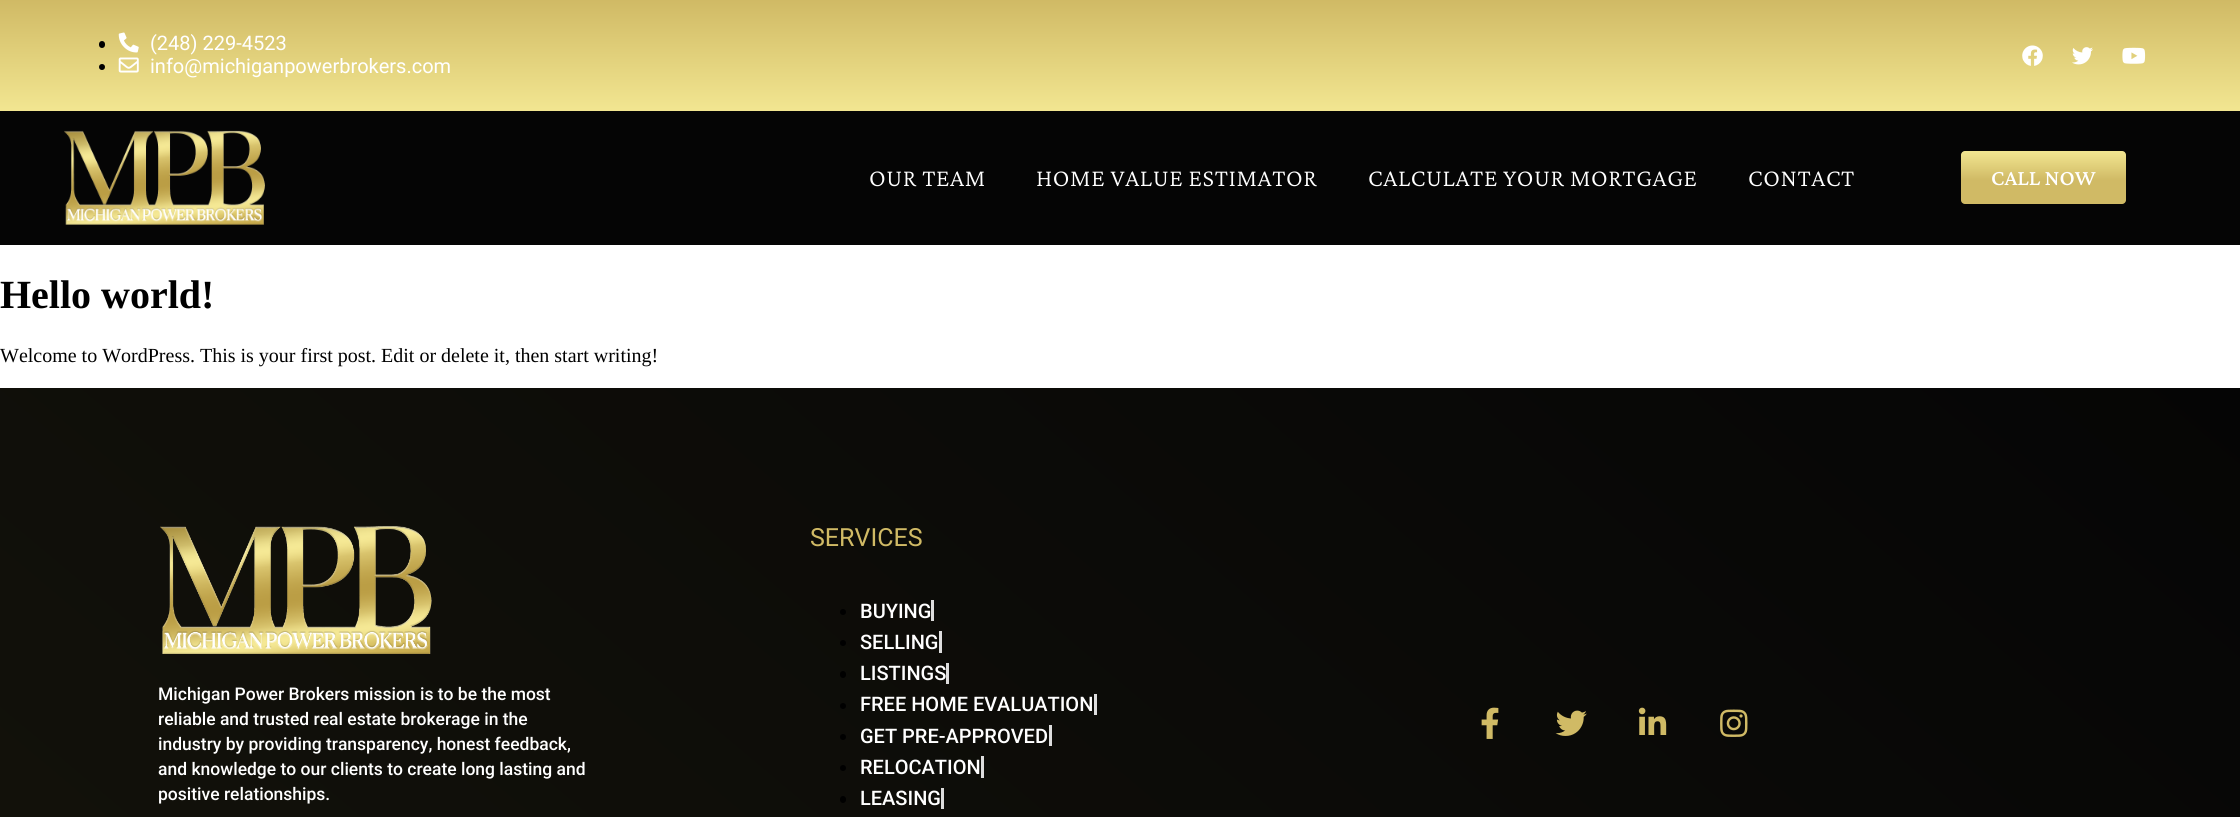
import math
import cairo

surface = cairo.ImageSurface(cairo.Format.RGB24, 2240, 817)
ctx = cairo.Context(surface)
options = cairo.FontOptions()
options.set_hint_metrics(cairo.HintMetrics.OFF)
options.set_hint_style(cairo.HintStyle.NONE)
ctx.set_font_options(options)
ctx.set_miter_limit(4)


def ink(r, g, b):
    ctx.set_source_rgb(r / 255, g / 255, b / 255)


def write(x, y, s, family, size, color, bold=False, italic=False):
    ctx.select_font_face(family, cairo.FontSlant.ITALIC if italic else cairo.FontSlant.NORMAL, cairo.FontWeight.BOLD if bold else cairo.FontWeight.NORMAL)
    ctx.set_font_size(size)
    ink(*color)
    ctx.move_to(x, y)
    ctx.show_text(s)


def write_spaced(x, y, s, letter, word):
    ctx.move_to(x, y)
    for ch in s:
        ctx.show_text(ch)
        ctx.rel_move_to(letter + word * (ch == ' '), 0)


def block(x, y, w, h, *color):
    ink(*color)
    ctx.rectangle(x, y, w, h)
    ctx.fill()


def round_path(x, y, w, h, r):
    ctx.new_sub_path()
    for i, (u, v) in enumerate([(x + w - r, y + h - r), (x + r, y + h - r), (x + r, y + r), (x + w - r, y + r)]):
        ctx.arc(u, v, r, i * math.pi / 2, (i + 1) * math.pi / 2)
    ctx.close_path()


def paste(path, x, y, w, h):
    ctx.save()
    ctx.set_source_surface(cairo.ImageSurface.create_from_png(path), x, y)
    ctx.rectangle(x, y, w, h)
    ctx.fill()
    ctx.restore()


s1 = dict(family="Roboto", size=20, color=(255, 255, 255))
s2 = dict(family="Crimson Pro Medium", size=22.5, color=(255, 255, 255))
s3 = dict(family="Liberation Serif", size=40, color=(0, 0, 0), bold=True)
s4 = dict(family="Liberation Serif", size=20, color=(0, 0, 0))
s5 = dict(family="Roboto Medium", size=17.5, color=(255, 255, 255))
s6 = dict(family="Roboto", size=25, color=(208, 186, 101))
s7 = dict(family="Roboto Medium", size=20, color=(255, 255, 255))

ink(255, 255, 255)
ctx.paint()
gradient = cairo.LinearGradient(1120, 0, 1120, 111)
gradient.add_color_stop_rgba(0, 0.816, 0.729, 0.396, 1)
gradient.add_color_stop_rgba(1, 0.949, 0.902, 0.569, 1)
ctx.set_source(gradient)
ctx.rectangle(0, 0, 2240, 111)
ctx.fill()
ink(0, 0, 0)
round_path(99, 41, 6, 7, 3)
ctx.fill()
paste("pic1.png", 118, 32, 21, 21)
write(150, 50, "(248) 229-4523", **s1)
ink(0, 0, 0)
ctx.new_path()
ctx.arc(102, 67, 3, 0, 2 * math.pi)
ctx.fill()
paste("pic2.png", 118, 57, 21, 16)
write(150, 73, "info@michiganpowerbrokers.com", **s1)
paste("pic3.png", 2022, 45, 21, 21)
paste("pic4.png", 2072, 47, 21, 18)
paste("pic5.png", 2122, 47, 24, 17)
block(0, 111, 2240, 134, 5, 5, 5)
paste("pic6.png", 64, 130, 201, 95)
ctx.select_font_face("Crimson Pro Light")
ctx.set_font_size(25)
ink(255, 255, 255)
write_spaced(869, 186, "OUR TEAM", 0.6, 0)
write_spaced(1036, 186, "HOME VALUE ESTIMATOR", 0.6, 0)
write_spaced(1368, 186, "CALCULATE YOUR MORTGAGE", 0.6, 0)
write_spaced(1748, 186, "CONTACT", 0.6, 0)
gradient = cairo.LinearGradient(2044, 151, 2044, 204)
gradient.add_color_stop_rgba(0, 0.949, 0.902, 0.569, 1)
gradient.add_color_stop_rgba(0.55, 0.816, 0.729, 0.396, 1)
ctx.set_source(gradient)
round_path(1961, 151, 165, 53, 4)
ctx.fill()
write(1991, 185, "CALL NOW", **s2)
write(0, 308, "Hello world!", **s3)
write(0, 362, "Welcome to WordPress. This is your first post. Edit or delete it, then start writing!", **s4)
gradient = cairo.LinearGradient(1738, -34, 502, 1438)
gradient.add_color_stop_rgba(0, 0.02, 0.02, 0.02, 1)
gradient.add_color_stop_rgba(1, 0.075, 0.071, 0.043, 1)
ctx.set_source(gradient)
ctx.rectangle(0, 388, 2240, 429)
ctx.fill()
paste("pic7.png", 160, 526, 272, 128)
write(158, 700, "Michigan Power Brokers mission is to be the most", **s5)
write(158, 725, "reliable and trusted real estate brokerage in the", **s5)
write(158, 750, "industry by providing transparency, honest feedback,", **s5)
write(158, 775, "and knowledge to our clients to create long lasting and", **s5)
write(158, 800, "positive relationships.", **s5)
write(810, 546, "SERVICES", **s6)
ink(0, 0, 0)
ctx.new_path()
ctx.arc(843, 612, 3, 0, 2 * math.pi)
ctx.fill()
write(860, 618, "BUYING", **s7)
block(931, 600, 3, 21, 221, 221, 221)
ink(0, 0, 0)
ctx.new_path()
ctx.arc(843, 643, 3, 0, 2 * math.pi)
ctx.fill()
write(860, 649, "SELLING", **s7)
block(939, 631, 3, 22, 221, 221, 221)
ink(0, 0, 0)
round_path(840, 671, 6, 7, 3)
ctx.fill()
write(860, 680, "LISTINGS", **s7)
block(946, 663, 3, 21, 221, 221, 221)
ink(0, 0, 0)
ctx.new_path()
ctx.arc(843, 706, 3, 0, 2 * math.pi)
ctx.fill()
write(860, 711, "FREE HOME EVALUATION", **s7)
block(1094, 694, 3, 21, 221, 221, 221)
ink(0, 0, 0)
ctx.new_path()
ctx.arc(843, 737, 3, 0, 2 * math.pi)
ctx.fill()
write(860, 743, "GET PRE-APPROVED", **s7)
block(1049, 725, 3, 21, 221, 221, 221)
ink(0, 0, 0)
ctx.new_path()
ctx.arc(843, 768, 3, 0, 2 * math.pi)
ctx.fill()
write(860, 774, "RELOCATION", **s7)
block(981, 756, 3, 22, 221, 221, 221)
ink(0, 0, 0)
round_path(840, 796, 6, 7, 3)
ctx.fill()
write(860, 805, "LEASING", **s7)
block(941, 788, 3, 21, 221, 221, 221)
paste("pic8.png", 1481, 707, 18, 32)
paste("pic9.png", 1555, 710, 32, 26)
paste("pic10.png", 1638, 707, 29, 28)
paste("pic11.png", 1720, 709, 28, 28)
surface.write_to_png("screenshot.png")
